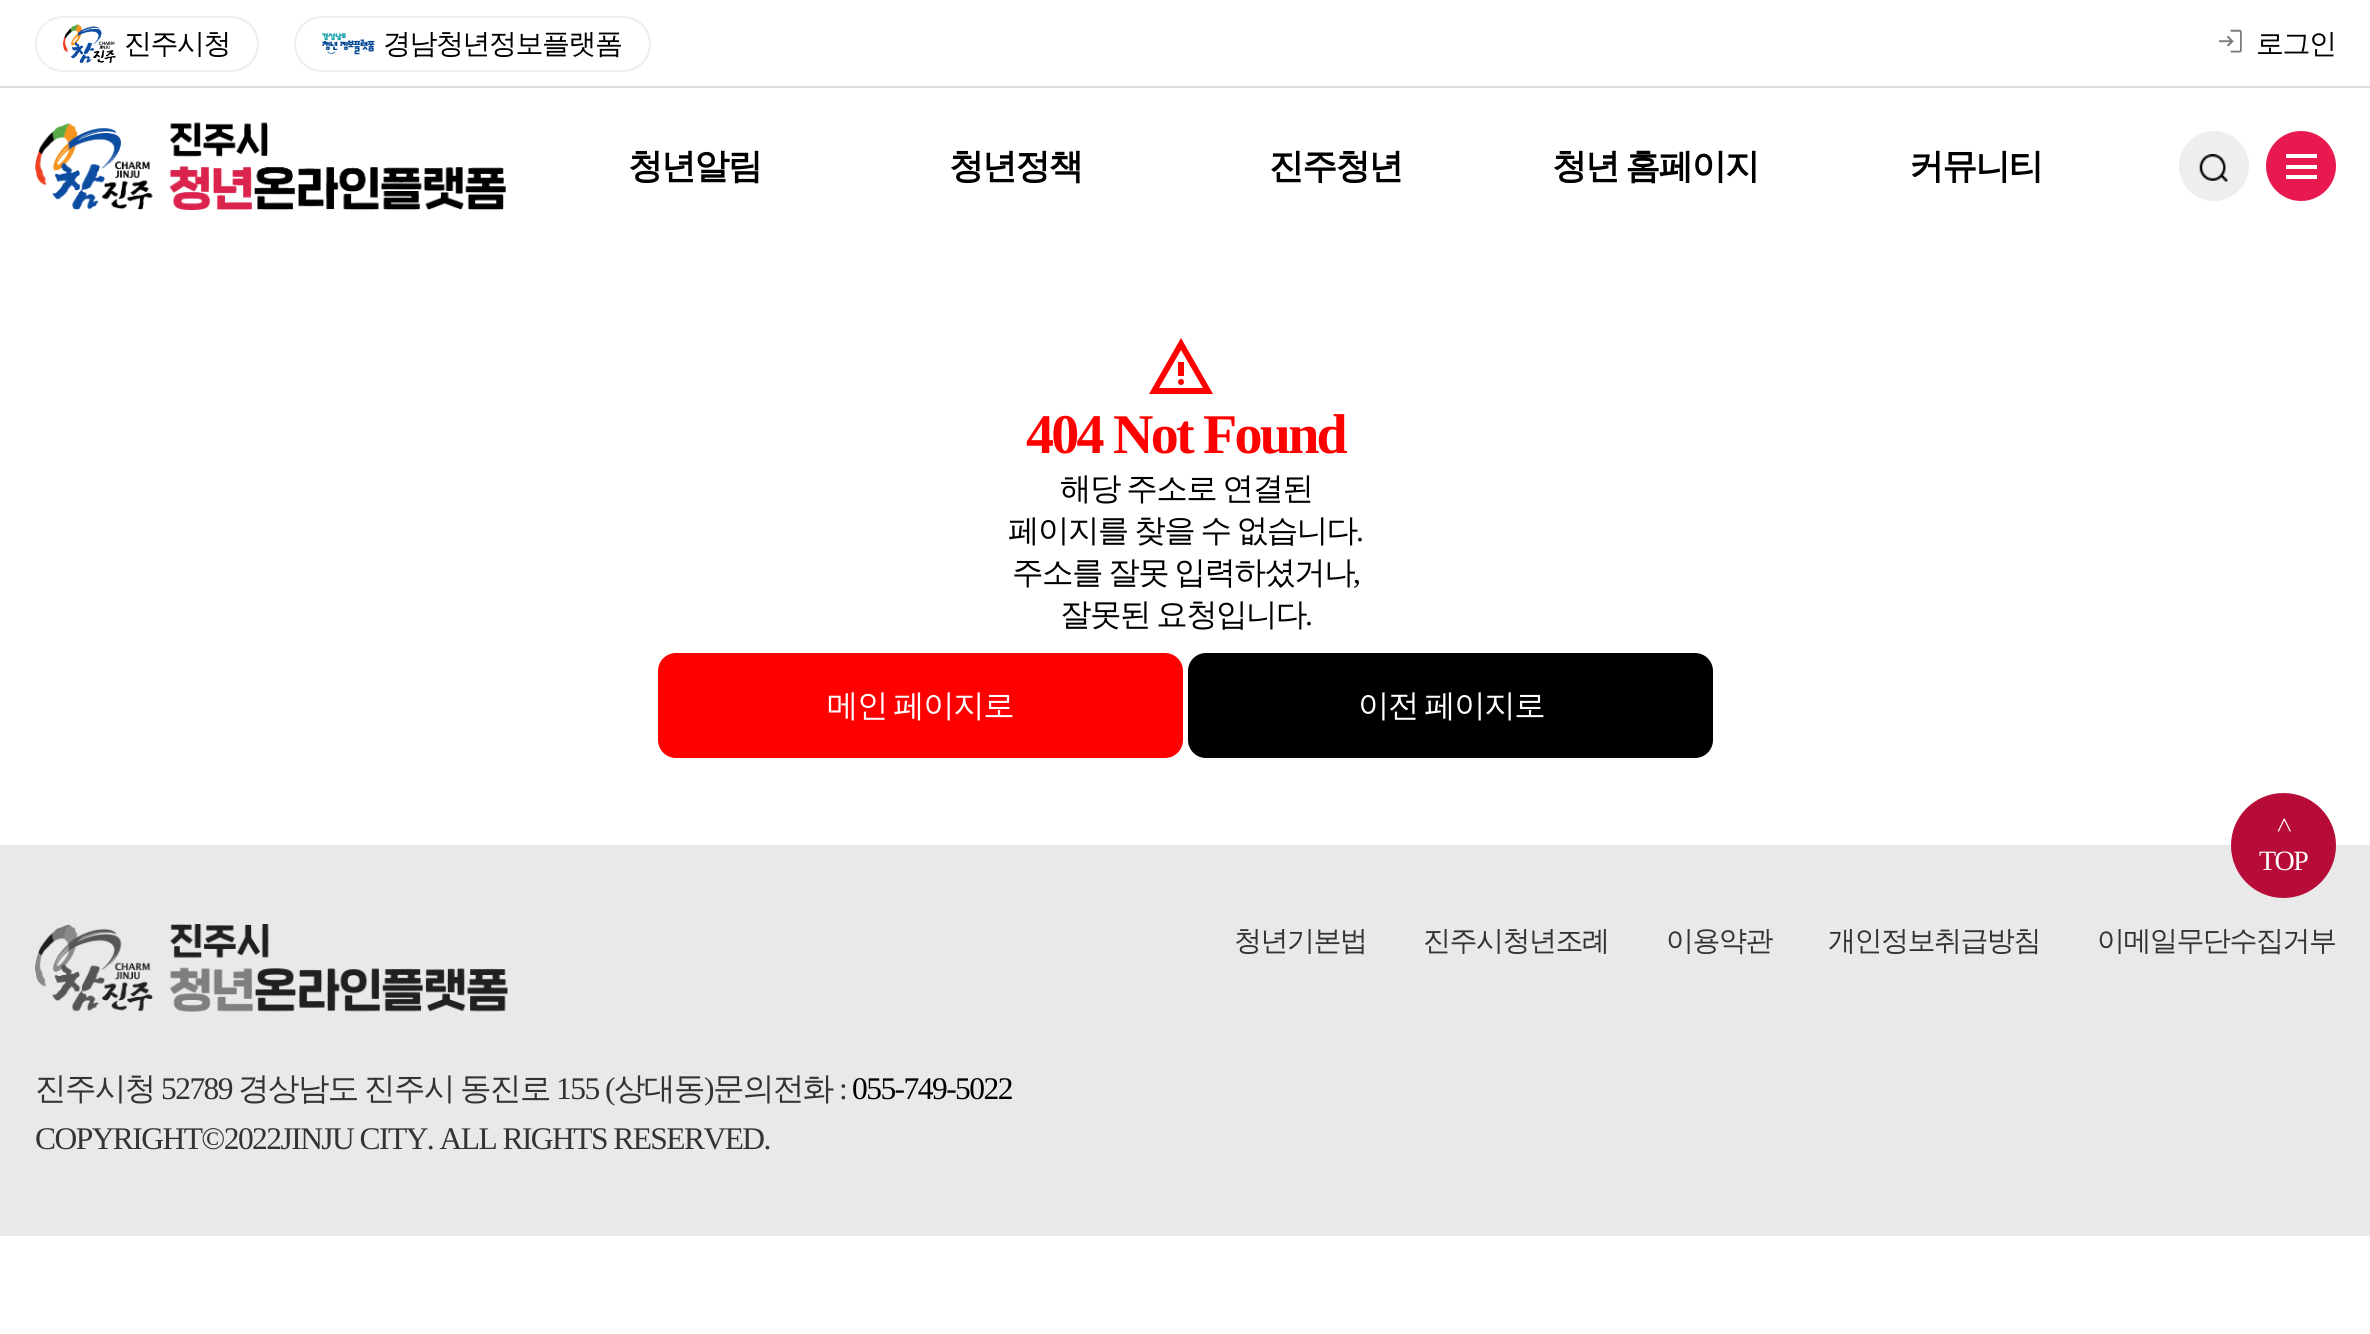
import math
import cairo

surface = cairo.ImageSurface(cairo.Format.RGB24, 2370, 1334)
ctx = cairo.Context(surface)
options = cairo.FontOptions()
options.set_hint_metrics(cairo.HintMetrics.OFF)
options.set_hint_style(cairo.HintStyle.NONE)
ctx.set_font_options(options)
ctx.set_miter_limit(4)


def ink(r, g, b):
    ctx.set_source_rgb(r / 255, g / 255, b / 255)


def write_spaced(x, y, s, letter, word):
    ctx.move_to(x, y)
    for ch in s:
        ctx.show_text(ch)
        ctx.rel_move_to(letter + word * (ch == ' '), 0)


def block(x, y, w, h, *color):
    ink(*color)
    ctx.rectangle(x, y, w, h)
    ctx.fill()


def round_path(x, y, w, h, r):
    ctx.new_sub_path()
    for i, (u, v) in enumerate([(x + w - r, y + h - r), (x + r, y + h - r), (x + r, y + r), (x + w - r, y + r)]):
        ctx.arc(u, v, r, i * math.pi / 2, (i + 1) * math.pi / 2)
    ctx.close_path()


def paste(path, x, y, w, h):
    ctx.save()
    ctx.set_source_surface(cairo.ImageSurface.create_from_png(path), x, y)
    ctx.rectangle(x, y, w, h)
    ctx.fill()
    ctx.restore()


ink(255, 255, 255)
ctx.paint()
block(0, 86, 2370, 2, 221, 221, 221)
round_path(36, 17, 222, 54, 27)
ink(238, 238, 238)
ctx.stroke()
paste("pic1.png", 63, 24, 53, 39)
ctx.select_font_face("WenQuanYi Zen Hei Medium")
ctx.set_font_size(28)
ink(0, 0, 0)
write_spaced(124, 53, "진주시청", -1.5, 0)
round_path(295, 17, 355, 54, 27)
ink(238, 238, 238)
ctx.stroke()
paste("pic2.png", 322, 33, 53, 22)
ink(0, 0, 0)
write_spaced(383, 53, "경남청년정보플랫폼", -1.5, 0)
paste("pic3.png", 2219, 29, 23, 24)
write_spaced(2256, 53, "로그인", -1.5, 0)
paste("pic4.png", 35, 122, 471, 88)
ctx.select_font_face("WenQuanYi Zen Hei", cairo.FontSlant.NORMAL, cairo.FontWeight.BOLD)
ctx.set_font_size(35)
write_spaced(628, 178, "청년알림", -1.75, 0)
write_spaced(949, 178, "청년정책", -1.75, 0)
write_spaced(1269, 178, "진주청년", -1.75, 0)
write_spaced(1552, 178, "청년 홈페이지", -1.75, -2)
write_spaced(1909, 178, "커뮤니티", -1.75, 0)
ink(238, 238, 238)
ctx.new_path()
ctx.arc(2214, 166, 35, 0, 2 * math.pi)
ctx.fill()
paste("pic5.png", 2199, 154, 29, 28)
ink(232, 25, 78)
ctx.arc(2301, 166, 35, 0, 2 * math.pi)
ctx.fill()
block(2286, 154, 31, 4, 255, 255, 255)
block(2286, 165, 31, 4, 255, 255, 255)
block(2286, 175, 31, 4, 255, 255, 255)
ink(255, 0, 0)
ctx.new_path()
ctx.move_to(1149, 394)
ctx.line_to(1181, 338)
ctx.line_to(1213, 394)
ctx.close_path()
ctx.move_to(1159, 388)
ctx.line_to(1203, 388)
ctx.line_to(1181, 350)
ctx.close_path()
ctx.move_to(1181, 385)
ctx.curve_to(1185, 385, 1185, 379, 1181, 379)
ctx.curve_to(1177, 379, 1177, 385, 1181, 385)
ctx.close_path()
ctx.move_to(1178, 376)
ctx.line_to(1184, 376)
ctx.line_to(1184, 362)
ctx.line_to(1178, 362)
ctx.close_path()
ctx.move_to(1181, 369)
ctx.close_path()
ctx.fill()
ctx.select_font_face("Liberation Serif", cairo.FontSlant.NORMAL, cairo.FontWeight.BOLD)
ctx.set_font_size(56)
write_spaced(1026, 453, "404 Not Found", -2.75, 0)
ctx.select_font_face("WenQuanYi Zen Hei Medium")
ctx.set_font_size(31.5)
ink(0, 0, 0)
write_spaced(1060, 499, "해당 주소로 연결된", -1.55, -1.5)
write_spaced(1008, 541, "페이지를 찾을 수 없습니다", -1.55, -1.5)
ctx.select_font_face("Liberation Serif")
write_spaced(1356, 541, ".", -1.55, 0)
ctx.select_font_face("WenQuanYi Zen Hei Medium")
write_spaced(1012, 583, "주소를 잘못 입력하셨거나", -1.55, -1.5)
ctx.select_font_face("Liberation Serif")
write_spaced(1353, 583, ",", -1.55, 0)
ctx.select_font_face("WenQuanYi Zen Hei Medium")
write_spaced(1060, 625, "잘못된 요청입니다", -1.55, -1.5)
ctx.select_font_face("Liberation Serif")
write_spaced(1305, 625, ".", -1.55, 0)
ink(255, 0, 0)
round_path(658, 653, 525, 105, 18)
ctx.fill()
ctx.select_font_face("WenQuanYi Zen Hei Medium")
ink(255, 255, 255)
write_spaced(827, 716, "메인 페이지로", -1.55, -1.5)
ink(0, 0, 0)
round_path(1188, 653, 525, 105, 18)
ctx.fill()
ink(255, 255, 255)
write_spaced(1358, 716, "이전 페이지로", -1.55, -1.5)
block(0, 845, 2370, 391, 233, 233, 233)
ink(183, 12, 56)
ctx.new_path()
ctx.arc(2283.5, 845.5, 52.5, 0, 2 * math.pi)
ctx.fill()
ctx.select_font_face("Liberation Serif")
ctx.set_font_size(28)
ink(255, 255, 255)
ctx.save()
ctx.translate(2275, 817)
ctx.rotate(90 * math.pi / 180)
write_spaced(0, 0, "<", -1.5, 0)
ctx.restore()
write_spaced(2259, 870, "TOP", -1.5, 0)
ctx.select_font_face("WenQuanYi Zen Hei Medium")
ink(51, 51, 51)
write_spaced(1234, 950, "청년기본법", -1.5, 0)
write_spaced(1423, 950, "진주시청년조례", -1.5, 0)
write_spaced(1666, 950, "이용약관", -1.5, 0)
write_spaced(1828, 950, "개인정보취급방침", -1.5, 0)
write_spaced(2097, 950, "이메일무단수집거부", -1.5, 0)
paste("pic6.png", 35, 924, 473, 88)
ctx.set_font_size(31.5)
write_spaced(35, 1099, "진주시청", -1.55, 0)
ctx.select_font_face("Liberation Serif")
write_spaced(161, 1099, "52789", -1.55, 0)
ctx.select_font_face("WenQuanYi Zen Hei Medium")
write_spaced(238, 1099, "경상남도", -1.55, 0)
write_spaced(364, 1099, "진주시", -1.55, 0)
write_spaced(460, 1099, "동진로", -1.55, 0)
ctx.select_font_face("Liberation Serif")
write_spaced(556, 1099, "155 (", -1.55, 0)
ctx.select_font_face("WenQuanYi Zen Hei Medium")
write_spaced(614, 1099, "상대동", -1.55, 0)
ctx.select_font_face("Liberation Serif")
write_spaced(704, 1099, ")", -1.55, 0)
ctx.select_font_face("WenQuanYi Zen Hei Medium")
write_spaced(713, 1099, "문의전화", -1.55, 0)
ctx.select_font_face("Liberation Serif")
write_spaced(839, 1099, ":", -1.55, 0)
ink(0, 0, 0)
write_spaced(852, 1099, "055-749-5022", -1.55, 0)
ink(51, 51, 51)
write_spaced(35, 1149, "COPYRIGHT©2022JINJU CITY. ALL RIGHTS RESERVED.", -1.55, 0)
surface.write_to_png("screenshot.png")
